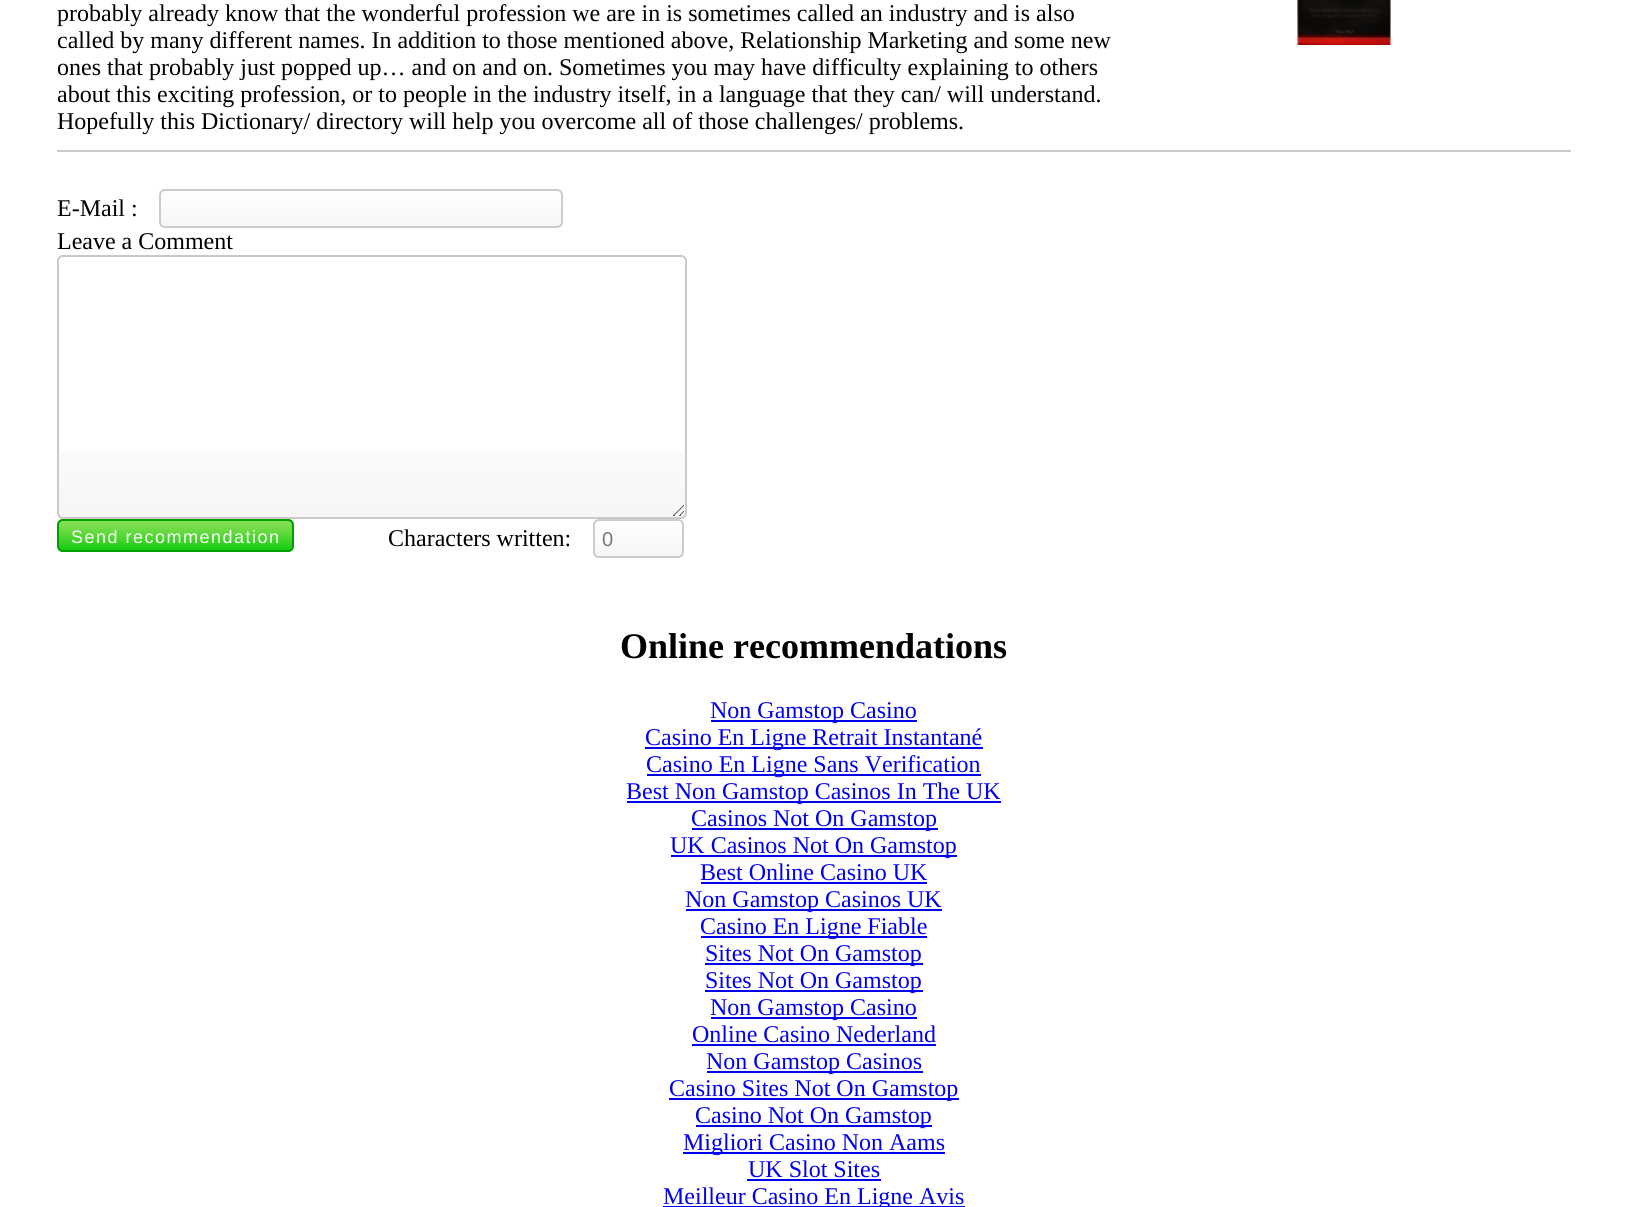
import math
import cairo

surface = cairo.ImageSurface(cairo.Format.RGB24, 1627, 1207)
ctx = cairo.Context(surface)
options = cairo.FontOptions()
options.set_hint_metrics(cairo.HintMetrics.OFF)
options.set_hint_style(cairo.HintStyle.NONE)
ctx.set_font_options(options)
ctx.set_miter_limit(4)


def ink(r, g, b):
    ctx.set_source_rgb(r / 255, g / 255, b / 255)


def write(x, y, s, family, size, color, bold=False, italic=False):
    ctx.select_font_face(family, cairo.FontSlant.ITALIC if italic else cairo.FontSlant.NORMAL, cairo.FontWeight.BOLD if bold else cairo.FontWeight.NORMAL)
    ctx.set_font_size(size)
    ink(*color)
    ctx.move_to(x, y)
    ctx.show_text(s)


def write_spaced(x, y, s, letter, word):
    ctx.move_to(x, y)
    for ch in s:
        ctx.show_text(ch)
        ctx.rel_move_to(letter + word * (ch == ' '), 0)


def block(x, y, w, h, *color):
    ink(*color)
    ctx.rectangle(x, y, w, h)
    ctx.fill()


def round_path(x, y, w, h, r):
    ctx.new_sub_path()
    for i, (u, v) in enumerate([(x + w - r, y + h - r), (x + r, y + h - r), (x + r, y + r), (x + w - r, y + r)]):
        ctx.arc(u, v, r, i * math.pi / 2, (i + 1) * math.pi / 2)
    ctx.close_path()


def paste(path, x, y, w, h):
    ctx.save()
    ctx.set_source_surface(cairo.ImageSurface.create_from_png(path), x, y)
    ctx.rectangle(x, y, w, h)
    ctx.fill()
    ctx.restore()


s1 = dict(family="Liberation Serif", size=24, color=(0, 0, 0))
s2 = dict(family="Liberation Sans", size=20, color=(119, 119, 119))
s3 = dict(family="Liberation Serif", size=36, color=(0, 0, 0), bold=True)
s4 = dict(family="Liberation Serif", size=24, color=(0, 0, 238))

ink(255, 255, 255)
ctx.paint()
block(57, 150, 1514, 2, 202, 201, 201)
write(57, 21, "probably already know that the wonderful profession we are in is sometimes called an industry and is also", **s1)
write(57, 48, "called by many different names. In addition to those mentioned above, Relationship Marketing and some new", **s1)
write(57, 75, "ones that probably just popped up… and on and on. Sometimes you may have difficulty explaining to others", **s1)
write(57, 102, "about this exciting profession, or to people in the industry itself, in a language that they can/ will understand.", **s1)
write(57, 129, "Hopefully this Dictionary/ directory will help you overcome all of those challenges/ problems.", **s1)
paste("pic1.png", 1297, 0, 94, 45)
write(57, 216, "E-Mail :", **s1)
paste("pic2.png", 159, 190, 404, 38)
round_path(160, 190, 402, 37, 5)
ink(204, 204, 204)
ctx.stroke()
write(57, 249, "Leave a Comment", **s1)
paste("pic3.png", 57, 451, 630, 67)
round_path(58, 256, 628, 262, 5)
ink(202, 201, 201)
ctx.stroke()
paste("pic4.png", 57, 519, 237, 33)
round_path(58, 520, 235, 31, 5)
ink(0, 160, 0)
ctx.stroke()
ctx.select_font_face("Liberation Sans")
ctx.set_font_size(18)
ink(255, 255, 255)
write_spaced(71, 543, "Send recommendation", 1.5, 0)
write(388, 546, "Characters written:", **s1)
paste("pic5.png", 593, 520, 91, 38)
round_path(594, 520, 89, 37, 5)
ink(204, 204, 204)
ctx.stroke()
write(602, 546, "0", **s2)
write(620, 658, "Online recommendations", **s3)
block(711, 720, 206, 2, 0, 0, 238)
write(710, 718, "Non Gamstop Casino", **s4)
block(645, 747, 338, 2, 0, 0, 238)
write(645, 745, "Casino En Ligne Retrait Instantané", **s4)
block(647, 774, 334, 2, 0, 0, 238)
write(646, 772, "Casino En Ligne Sans Verification", **s4)
block(627, 801, 374, 2, 0, 0, 238)
write(626, 799, "Best Non Gamstop Casinos In The UK", **s4)
block(692, 828, 246, 2, 0, 0, 238)
write(691, 826, "Casinos Not On Gamstop", **s4)
block(671, 855, 286, 2, 0, 0, 238)
write(670, 853, "UK Casinos Not On Gamstop", **s4)
write(700, 880, "Best Online Casino UK", **s4)
block(701, 882, 226, 2, 0, 0, 238)
block(686, 909, 256, 2, 0, 0, 238)
write(685, 907, "Non Gamstop Casinos UK", **s4)
block(701, 936, 226, 2, 0, 0, 238)
write(700, 934, "Casino En Ligne Fiable", **s4)
block(705, 963, 218, 2, 0, 0, 238)
write(705, 961, "Sites Not On Gamstop", **s4)
block(705, 990, 218, 2, 0, 0, 238)
write(705, 988, "Sites Not On Gamstop", **s4)
block(711, 1017, 206, 2, 0, 0, 238)
write(710, 1015, "Non Gamstop Casino", **s4)
write(692, 1042, "Online Casino Nederland", **s4)
block(692, 1044, 244, 2, 0, 0, 238)
block(707, 1071, 216, 2, 0, 0, 238)
write(706, 1069, "Non Gamstop Casinos", **s4)
block(669, 1098, 290, 2, 0, 0, 238)
write(669, 1096, "Casino Sites Not On Gamstop", **s4)
block(696, 1125, 236, 2, 0, 0, 238)
write(695, 1123, "Casino Not On Gamstop", **s4)
block(683, 1152, 262, 2, 0, 0, 238)
write(683, 1150, "Migliori Casino Non Aams", **s4)
write(748, 1177, "UK Slot Sites", **s4)
block(747, 1179, 134, 2, 0, 0, 238)
block(663, 1206, 302, 1, 0, 0, 238)
write(663, 1204, "Meilleur Casino En Ligne Avis", **s4)
surface.write_to_png("screenshot.png")
